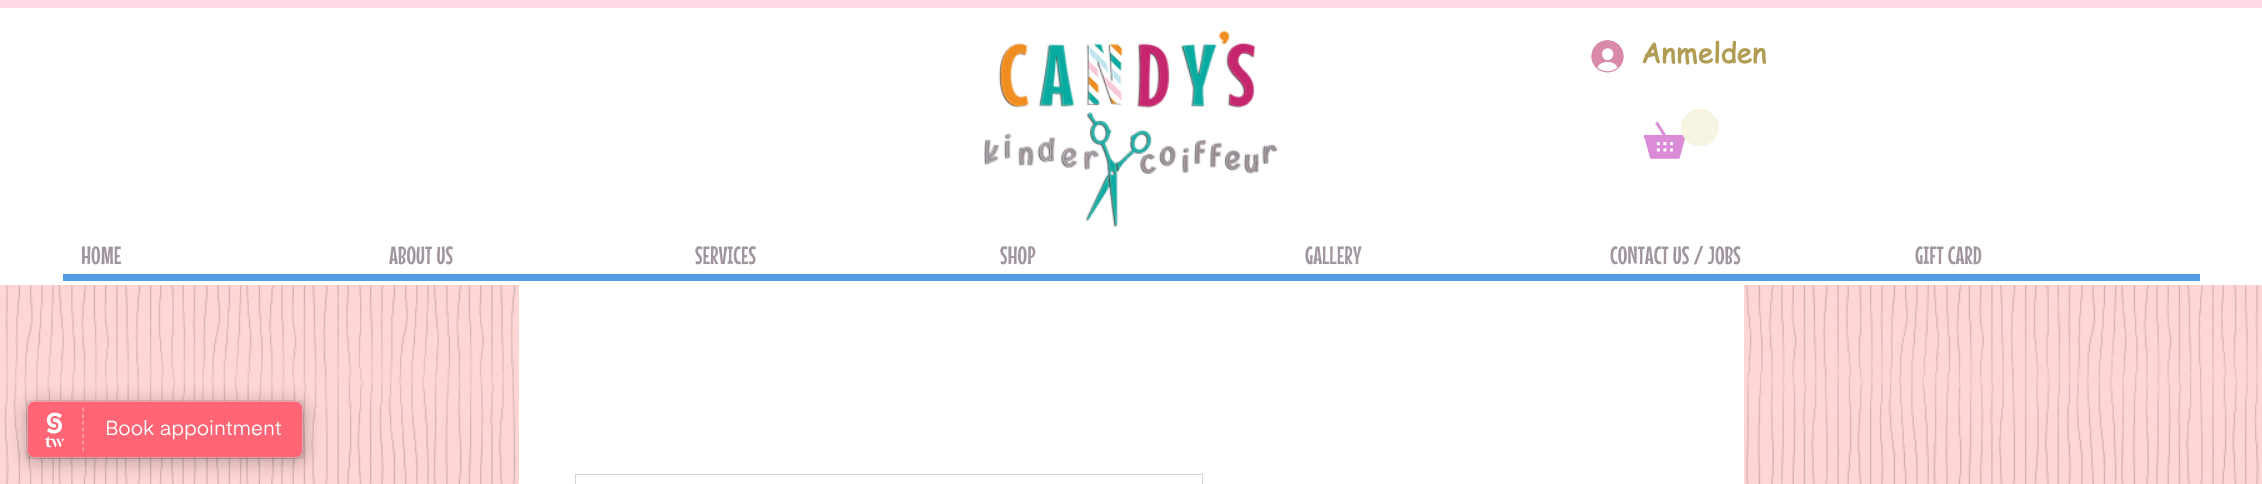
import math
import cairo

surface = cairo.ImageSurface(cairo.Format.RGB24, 2262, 484)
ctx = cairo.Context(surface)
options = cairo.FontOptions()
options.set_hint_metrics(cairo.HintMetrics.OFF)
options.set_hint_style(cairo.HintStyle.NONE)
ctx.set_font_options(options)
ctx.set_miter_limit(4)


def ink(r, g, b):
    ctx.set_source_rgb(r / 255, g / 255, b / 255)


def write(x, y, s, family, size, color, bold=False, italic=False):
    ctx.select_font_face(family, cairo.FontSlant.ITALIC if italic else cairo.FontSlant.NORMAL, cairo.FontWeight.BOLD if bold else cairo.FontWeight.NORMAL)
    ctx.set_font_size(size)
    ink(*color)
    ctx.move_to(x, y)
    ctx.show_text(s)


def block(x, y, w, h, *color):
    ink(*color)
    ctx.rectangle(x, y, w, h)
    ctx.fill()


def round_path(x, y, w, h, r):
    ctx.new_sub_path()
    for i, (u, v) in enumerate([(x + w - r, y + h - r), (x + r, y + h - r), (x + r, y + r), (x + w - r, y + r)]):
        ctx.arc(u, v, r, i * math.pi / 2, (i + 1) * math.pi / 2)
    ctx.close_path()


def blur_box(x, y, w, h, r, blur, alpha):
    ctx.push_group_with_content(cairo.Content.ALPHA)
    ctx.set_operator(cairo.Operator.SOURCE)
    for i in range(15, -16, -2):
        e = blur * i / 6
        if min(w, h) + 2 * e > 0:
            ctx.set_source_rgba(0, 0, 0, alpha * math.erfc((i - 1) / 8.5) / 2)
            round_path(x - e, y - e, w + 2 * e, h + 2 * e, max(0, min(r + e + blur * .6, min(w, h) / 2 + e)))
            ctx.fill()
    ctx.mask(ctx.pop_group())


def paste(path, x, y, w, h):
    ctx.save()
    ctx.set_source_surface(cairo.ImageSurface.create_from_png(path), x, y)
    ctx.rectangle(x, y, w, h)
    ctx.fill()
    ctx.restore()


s1 = dict(family="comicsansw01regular", size=27.5, color=(176, 156, 83), bold=True)
s2 = dict(family="Mouse Memoirs", size=25, color=(161, 149, 159))

ink(255, 213, 213)
ctx.paint()
block(0, 8, 2262, 277, 255, 255, 255)
block(0, 0, 2262, 8, 255, 217, 228)
paste("pic1.png", 984, 31, 294, 196)
paste("pic2.png", 1591, 40, 33, 33)
write(1641, 63, "Anmelden", **s1)
paste("pic3.png", 1643, 108, 76, 51)
block(63, 274, 2137, 7, 80, 155, 225)
write(81, 264, "HOME", **s2)
write(389, 264, "ABOUT US", **s2)
write(695, 264, "SERVICES", **s2)
write(1000, 264, "SHOP", **s2)
write(1305, 264, "GALLERY", **s2)
write(1610, 264, "CONTACT US / JOBS", **s2)
write(1915, 264, "GIFT CARD", **s2)
paste("pic4.png", 4, 285, 2255, 199)
block(519, 285, 1225, 199, 255, 255, 255)
ctx.rectangle(575.5, 474.5, 627, 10)
ink(212, 212, 212)
ctx.set_line_width(1)
ctx.stroke()
ink(0, 0, 0)
blur_box(28, 405, 275, 56, 8, 9.5, 0.3)
paste("pic5.png", 26, 400, 278, 59)
surface.write_to_png("screenshot.png")
